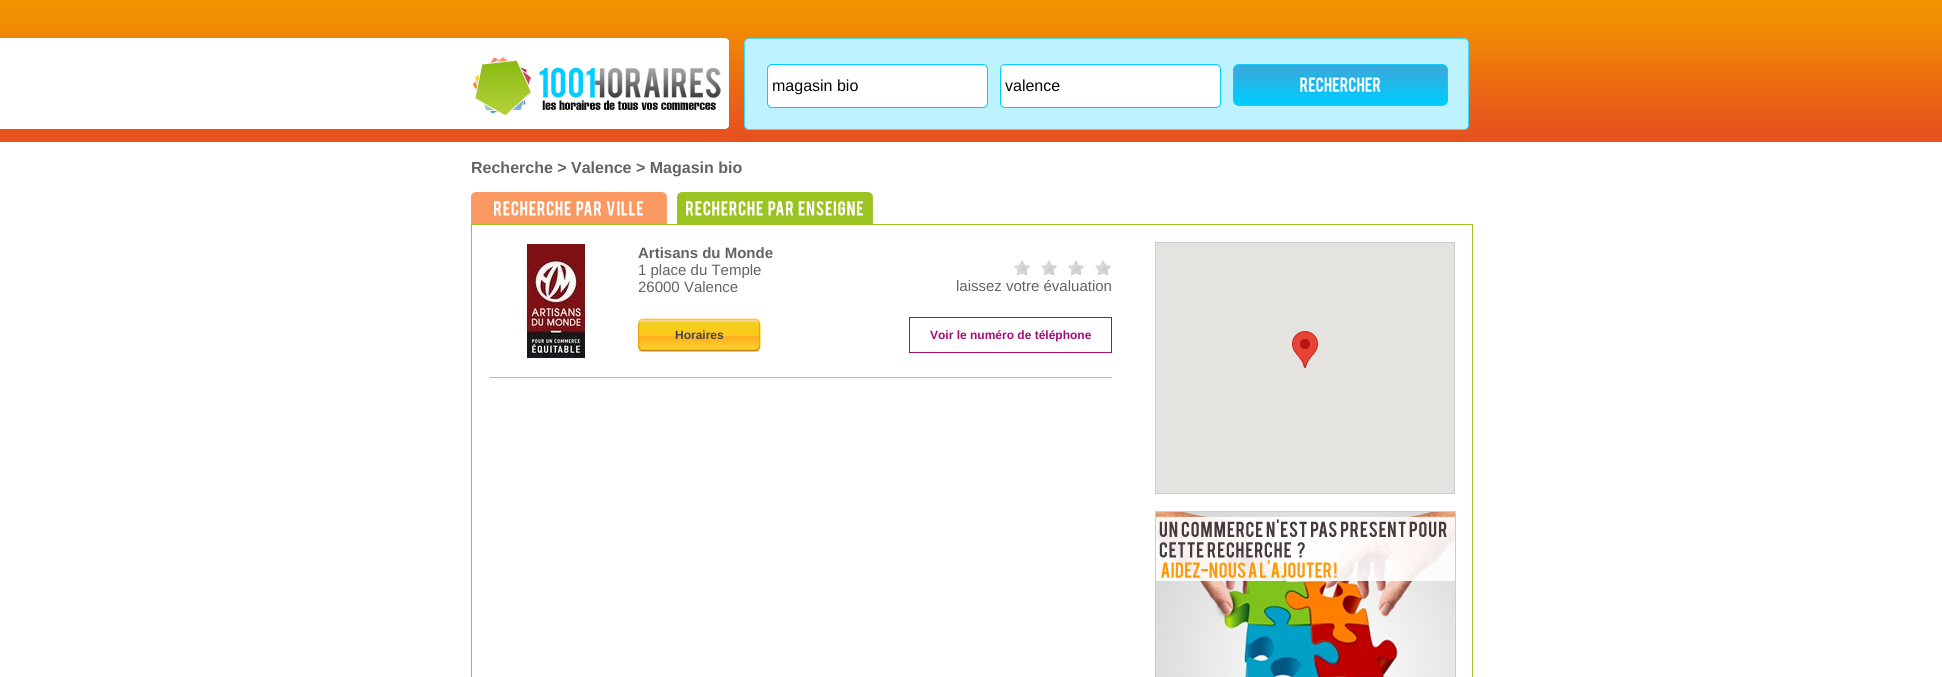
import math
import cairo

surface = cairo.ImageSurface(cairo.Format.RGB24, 1942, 677)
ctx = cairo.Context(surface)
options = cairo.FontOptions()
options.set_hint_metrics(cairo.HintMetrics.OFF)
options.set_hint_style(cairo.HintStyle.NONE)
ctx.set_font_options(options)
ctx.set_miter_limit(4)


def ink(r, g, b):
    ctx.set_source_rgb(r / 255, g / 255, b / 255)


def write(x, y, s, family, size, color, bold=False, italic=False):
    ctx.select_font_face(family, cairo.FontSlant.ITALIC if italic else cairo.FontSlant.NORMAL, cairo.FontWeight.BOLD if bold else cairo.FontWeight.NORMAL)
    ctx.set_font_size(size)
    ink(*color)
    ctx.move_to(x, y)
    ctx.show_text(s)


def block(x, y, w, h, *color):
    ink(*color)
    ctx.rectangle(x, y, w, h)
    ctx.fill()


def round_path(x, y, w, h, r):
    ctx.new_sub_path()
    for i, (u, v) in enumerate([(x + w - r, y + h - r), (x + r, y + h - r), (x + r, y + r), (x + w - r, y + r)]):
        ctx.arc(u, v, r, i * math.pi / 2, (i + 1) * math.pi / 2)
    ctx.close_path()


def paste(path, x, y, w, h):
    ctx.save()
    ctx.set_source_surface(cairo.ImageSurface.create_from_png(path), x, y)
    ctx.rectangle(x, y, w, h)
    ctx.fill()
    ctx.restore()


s1 = dict(family="Liberation Sans", size=16, color=(6, 6, 6))
s2 = dict(family="Liberation Sans", size=16, color=(99, 99, 99), bold=True)
s3 = dict(family="Liberation Sans", size=15, color=(99, 99, 99), bold=True)
s4 = dict(family="Liberation Sans", size=15, color=(99, 99, 99))
s5 = dict(family="Liberation Sans", size=12, color=(68, 68, 68), bold=True)
s6 = dict(family="Liberation Sans", size=12, color=(164, 12, 119), bold=True)

ink(255, 255, 255)
ctx.paint()
paste("pic1.png", 0, 0, 1942, 142)
paste("pic2.png", 688, 32, 311, 103)
paste("pic3.png", 472, 38, 257, 91)
ink(191, 242, 255)
round_path(744.5, 38.5, 724, 91, 4.5)
ctx.fill_preserve()
ink(69, 216, 253)
ctx.set_line_width(1)
ctx.stroke()
ink(255, 255, 255)
round_path(767.5, 64.5, 220, 43, 4.5)
ctx.fill_preserve()
ink(0, 204, 255)
ctx.stroke()
write(772, 91, "magasin bio", **s1)
ink(255, 255, 255)
round_path(1000.5, 64.5, 220, 43, 4.5)
ctx.fill_preserve()
ink(0, 204, 255)
ctx.stroke()
write(1005, 91, "valence", **s1)
paste("pic4.png", 1233, 64, 215, 42)
write(471, 173, "Recherche >", **s2)
write(571, 173, "Valence", **s2)
write(636, 173, "> Magasin bio", **s2)
paste("pic5.png", 471, 192, 196, 32)
paste("pic6.png", 677, 192, 196, 32)
ctx.rectangle(471.5, 224.5, 1001, 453)
ink(155, 195, 34)
ctx.stroke()
paste("pic7.png", 523, 244, 64, 114)
write(638, 258, "Artisans du Monde", **s3)
write(638, 275, "1 place du Temple", **s4)
write(638, 292, "26000 Valence", **s4)
paste("pic8.png", 1014, 260, 16, 15)
paste("pic8.png", 1041, 260, 16, 15)
paste("pic8.png", 1068, 260, 16, 15)
paste("pic8.png", 1095, 260, 16, 15)
write(956, 291, "laissez votre évaluation", **s4)
paste("pic9.png", 638, 318, 123, 34)
write(675, 339, "Horaires", **s5)
ctx.rectangle(909.5, 317.5, 202, 35)
ink(164, 12, 119)
ctx.stroke()
write(930, 339, "Voir le numéro de téléphone", **s6)
block(489, 377, 623, 1, 193, 182, 185)
ctx.rectangle(1155.5, 242.5, 299, 251)
ink(204, 204, 204)
ctx.stroke()
block(1156, 243, 298, 250, 229, 227, 223)
paste("pic10.png", 1292, 331, 26, 37)
ctx.rectangle(1155.5, 511.5, 300, 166)
ink(204, 204, 204)
ctx.stroke()
paste("pic11.png", 1156, 512, 299, 165)
surface.write_to_png("screenshot.png")
